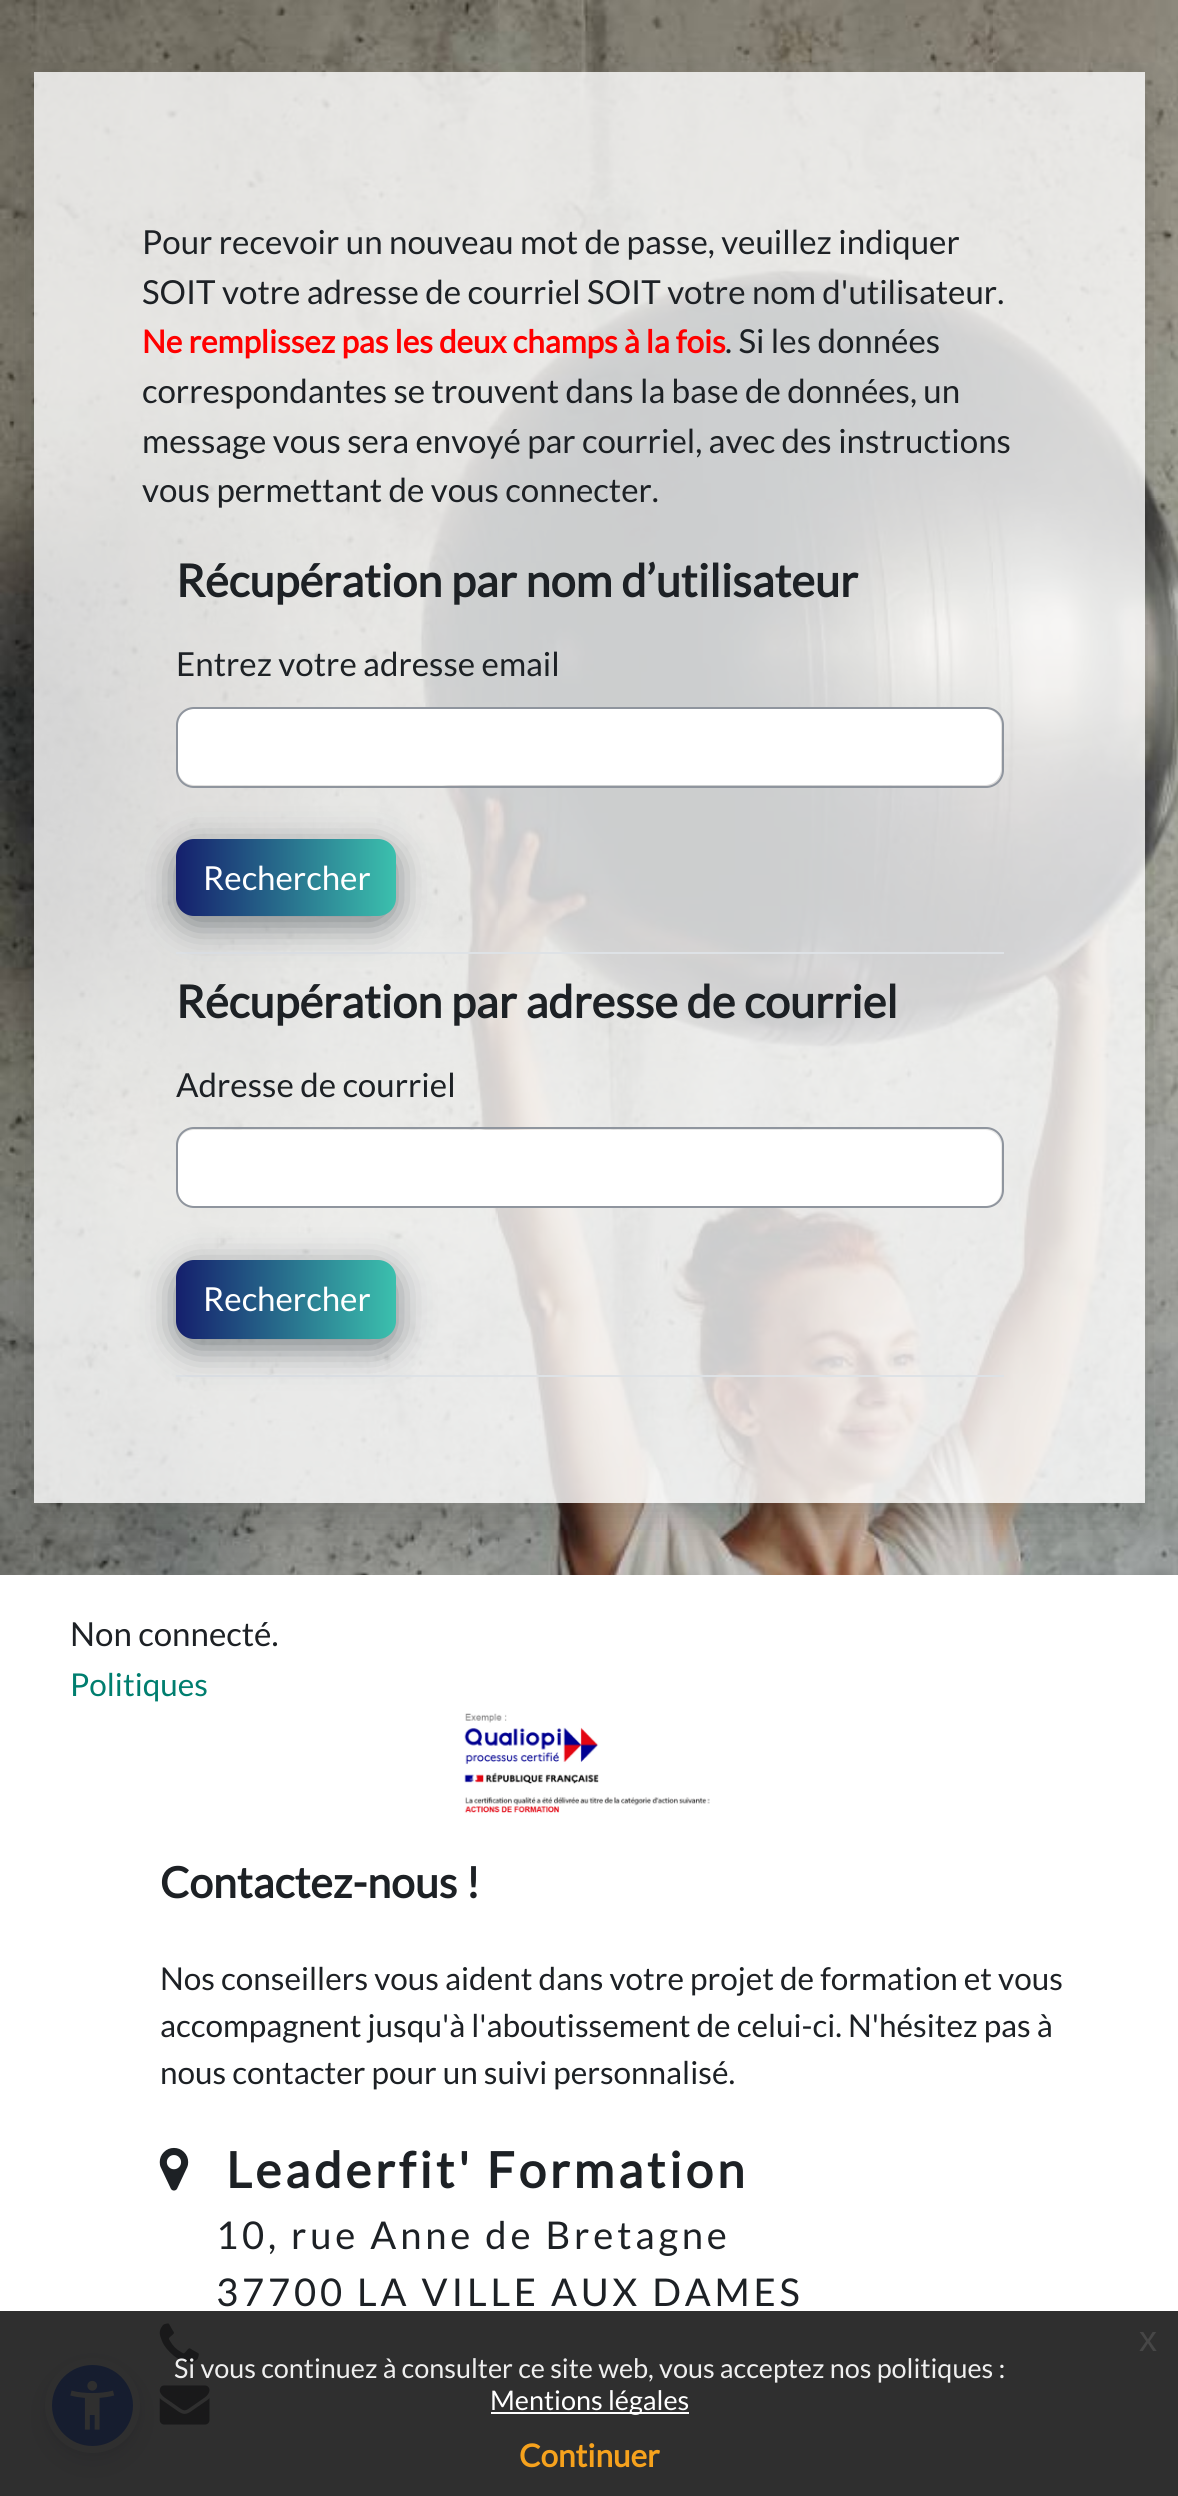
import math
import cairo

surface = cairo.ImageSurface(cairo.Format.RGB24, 1178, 2496)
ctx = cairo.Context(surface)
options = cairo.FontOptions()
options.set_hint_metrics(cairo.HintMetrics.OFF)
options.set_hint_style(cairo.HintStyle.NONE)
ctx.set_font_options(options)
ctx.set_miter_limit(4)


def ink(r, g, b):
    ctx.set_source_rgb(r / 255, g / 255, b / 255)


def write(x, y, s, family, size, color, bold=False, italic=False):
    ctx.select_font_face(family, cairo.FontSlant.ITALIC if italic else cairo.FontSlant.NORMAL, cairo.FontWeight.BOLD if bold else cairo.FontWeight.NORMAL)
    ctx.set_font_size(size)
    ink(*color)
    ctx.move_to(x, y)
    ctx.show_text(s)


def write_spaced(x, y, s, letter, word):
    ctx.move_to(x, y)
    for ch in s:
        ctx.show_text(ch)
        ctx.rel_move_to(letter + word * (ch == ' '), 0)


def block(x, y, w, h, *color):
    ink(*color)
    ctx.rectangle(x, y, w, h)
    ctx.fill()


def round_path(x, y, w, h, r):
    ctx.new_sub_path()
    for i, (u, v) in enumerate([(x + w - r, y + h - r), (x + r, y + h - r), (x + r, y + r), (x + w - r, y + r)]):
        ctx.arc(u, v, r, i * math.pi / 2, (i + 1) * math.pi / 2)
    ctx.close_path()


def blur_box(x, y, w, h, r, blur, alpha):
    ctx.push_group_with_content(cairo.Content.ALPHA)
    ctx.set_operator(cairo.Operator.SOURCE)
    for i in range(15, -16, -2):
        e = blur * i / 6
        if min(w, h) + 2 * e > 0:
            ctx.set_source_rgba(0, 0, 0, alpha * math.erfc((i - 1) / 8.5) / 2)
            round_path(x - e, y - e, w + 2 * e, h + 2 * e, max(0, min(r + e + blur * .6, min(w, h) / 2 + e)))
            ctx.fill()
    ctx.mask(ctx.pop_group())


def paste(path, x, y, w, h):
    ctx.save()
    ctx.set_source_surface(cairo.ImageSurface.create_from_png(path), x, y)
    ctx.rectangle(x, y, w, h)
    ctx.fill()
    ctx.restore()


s1 = dict(family="Lato", size=33.1, color=(29, 33, 37))
s2 = dict(family="Lato", size=31.5, color=(255, 0, 0), bold=True)
s3 = dict(family="Lato", size=45, color=(29, 33, 37), bold=True)
s4 = dict(family="Lato", size=33.1, color=(255, 255, 255))
s5 = dict(family="Lato", size=31.5, color=(0, 126, 111))
s6 = dict(family="Lato", size=42.75, color=(29, 33, 37), bold=True)
s7 = dict(family="Lato", size=31.5, color=(29, 33, 37))
s8 = dict(family="Liberation Sans", size=36, color=(71, 71, 71))
s9 = dict(family="Lato", size=27, color=(239, 239, 239))
s10 = dict(family="Lato", size=27, color=(255, 255, 255))
s11 = dict(family="Lato", size=31.5, color=(246, 162, 29), bold=True)

ink(255, 255, 255)
ctx.paint()
paste("pic1.png", 0, 0, 1178, 1575)
ctx.save()
ctx.set_fill_rule(cairo.FillRule.EVEN_ODD)
ctx.new_path()
ctx.move_to(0, 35)
ctx.line_to(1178, 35)
ctx.line_to(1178, 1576)
ctx.line_to(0, 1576)
ctx.close_path()
ctx.move_to(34, 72)
ctx.line_to(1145, 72)
ctx.line_to(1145, 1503)
ctx.line_to(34, 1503)
ctx.close_path()
ctx.clip()
ink(0, 0, 0)
blur_box(34, 90, 1111, 1431, 0, 18, 0.15)
ctx.restore()
ctx.set_source_rgba(1, 1, 1, 0.8)
ctx.rectangle(34, 72, 1111, 1431)
ctx.fill()
write(142, 254, "Pour recevoir un nouveau mot de passe, veuillez indiquer", **s1)
write(142, 304, "SOIT votre adresse de courriel SOIT votre nom d'utilisateur.", **s1)
write(142, 353, "Ne remplissez pas les deux champs à la fois", **s2)
write(725, 353, ". Si les données", **s1)
write(142, 403, "correspondantes se trouvent dans la base de données, un", **s1)
write(142, 453, "message vous sera envoyé par courriel, avec des instructions", **s1)
write(142, 502, "vous permettant de vous connecter.", **s1)
block(176, 952, 828, 2, 222, 226, 230)
write(176, 597, "Récupération par nom d’utilisateur", **s3)
write(176, 676, "Entrez votre adresse email", **s1)
ink(255, 255, 255)
round_path(178, 709, 823, 76, 16)
ctx.fill()
round_path(177, 708, 826, 79, 17)
ink(143, 149, 158)
ctx.stroke()
ink(88, 96, 102)
blur_box(176, 848, 220, 77, 18, 17, 0.75)
gradient = cairo.LinearGradient(176, 878, 837, 878)
gradient.add_color_stop_rgba(0, 0.082, 0.122, 0.427, 1)
gradient.add_color_stop_rgba(0.33, 0.231, 0.749, 0.678, 1)
gradient.add_color_stop_rgba(0.67, 0.231, 0.749, 0.678, 1)
gradient.add_color_stop_rgba(1, 0.082, 0.122, 0.427, 1)
ctx.set_source(gradient)
round_path(176, 839, 220, 77, 18)
ctx.fill()
write(203, 890, "Rechercher", **s4)
block(176, 1375, 828, 2, 222, 226, 230)
write(176, 1018, "Récupération par adresse de courriel", **s3)
write(176, 1097, "Adresse de courriel", **s1)
ink(255, 255, 255)
round_path(178, 1130, 823, 76, 16)
ctx.fill()
round_path(177, 1128, 826, 79, 17)
ink(143, 149, 158)
ctx.stroke()
ink(88, 96, 102)
blur_box(176, 1269, 220, 79, 18, 17, 0.75)
gradient = cairo.LinearGradient(176, 1299, 837, 1299)
gradient.add_color_stop_rgba(0, 0.082, 0.122, 0.427, 1)
gradient.add_color_stop_rgba(0.33, 0.231, 0.749, 0.678, 1)
gradient.add_color_stop_rgba(0.67, 0.231, 0.749, 0.678, 1)
gradient.add_color_stop_rgba(1, 0.082, 0.122, 0.427, 1)
ctx.set_source(gradient)
round_path(176, 1260, 220, 79, 18)
ctx.fill()
write(203, 1311, "Rechercher", **s4)
write(70, 1646, "Non connecté.", **s1)
write(70, 1696, "Politiques", **s5)
paste("pic2.png", 464, 1713, 246, 100)
write(160, 1898, "Contactez-nous !", **s6)
write(160, 1990, "Nos conseillers vous aident dans votre projet de formation et vous", **s7)
write(160, 2037, "accompagnent jusqu'à l'aboutissement de celui-ci. N'hésitez pas à", **s7)
write(160, 2084, "nous contacter pour un suivi personnalisé.", **s7)
paste("pic3.png", 159, 2147, 30, 44)
ctx.select_font_face("Lato", cairo.FontSlant.NORMAL, cairo.FontWeight.BOLD)
ctx.set_font_size(49.5)
write_spaced(226, 2188, "Leaderfit' Formation", 3.8, 0)
ctx.select_font_face("Lato")
ctx.set_font_size(38.25)
write_spaced(216, 2249, "10, rue Anne de Bretagne", 3.8, 0)
write_spaced(216, 2306, "37700 LA VILLE AUX DAMES", 3.8, 0)
paste("pic4.png", 159, 2323, 40, 40)
paste("pic5.png", 159, 2385, 51, 40)
ink(93, 100, 148)
blur_box(45, 2363, 95, 94, 47, 4.5, 0.2)
ink(37, 44, 97)
blur_box(45, 2369, 95, 95, 47.5, 17, 0.15)
ink(0, 72, 255)
ctx.arc(92.5, 2405.5, 44, 0, 2 * math.pi)
ctx.fill_preserve()
ink(255, 255, 255)
ctx.set_line_width(7)
ctx.stroke()
paste("pic6.png", 70, 2380, 45, 50)
ctx.set_source_rgba(0.098, 0.098, 0.098, 0.9)
ctx.rectangle(0, 2311, 1178, 185)
ctx.fill()
write(1139, 2351, "x", **s8)
write(174, 2378, "Si vous continuez à consulter ce site web, vous acceptez nos politiques :", **s9)
block(491, 2412, 198, 2, 255, 255, 255)
write(490, 2410, "Mentions légales", **s10)
write(519, 2467, "Continuer", **s11)
surface.write_to_png("screenshot.png")
